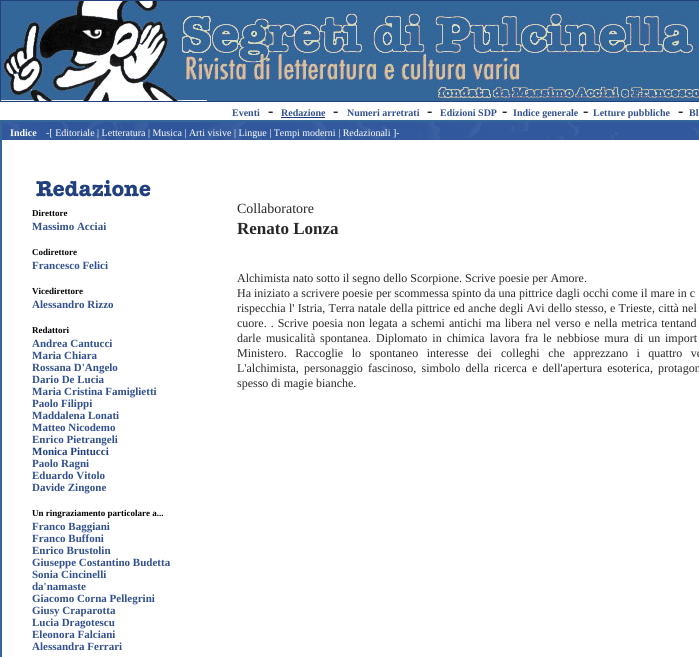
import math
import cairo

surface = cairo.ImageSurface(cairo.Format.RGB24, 699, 657)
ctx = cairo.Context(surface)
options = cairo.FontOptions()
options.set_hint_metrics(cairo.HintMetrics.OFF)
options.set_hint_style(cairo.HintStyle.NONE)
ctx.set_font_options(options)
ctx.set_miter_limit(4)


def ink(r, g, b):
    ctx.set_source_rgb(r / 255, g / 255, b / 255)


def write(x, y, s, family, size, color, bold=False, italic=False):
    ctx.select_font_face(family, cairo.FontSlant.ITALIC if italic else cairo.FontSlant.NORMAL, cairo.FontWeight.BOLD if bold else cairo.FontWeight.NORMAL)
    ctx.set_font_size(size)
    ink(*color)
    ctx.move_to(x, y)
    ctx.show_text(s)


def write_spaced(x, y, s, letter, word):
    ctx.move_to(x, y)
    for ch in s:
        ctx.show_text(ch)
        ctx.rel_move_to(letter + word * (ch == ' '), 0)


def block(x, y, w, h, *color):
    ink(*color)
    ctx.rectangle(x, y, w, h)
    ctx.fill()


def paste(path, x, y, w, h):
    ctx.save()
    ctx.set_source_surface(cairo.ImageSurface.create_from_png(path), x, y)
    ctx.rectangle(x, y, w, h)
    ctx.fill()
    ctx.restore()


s1 = dict(family="Liberation Serif", size=10, color=(50, 80, 143), bold=True)
s2 = dict(family="Liberation Serif", size=16, color=(0, 0, 0))
s3 = dict(family="Liberation Serif", size=10, color=(255, 255, 255), bold=True)
s4 = dict(family="Liberation Serif", size=10, color=(255, 255, 255))
s5 = dict(family="Liberation Serif", size=9, color=(0, 0, 0), bold=True)
s6 = dict(family="Liberation Serif", size=11, color=(50, 80, 143), bold=True)
s7 = dict(family="Liberation Serif", size=11, color=(35, 64, 126), bold=True)
s8 = dict(family="Liberation Serif", size=14, color=(39, 39, 39))
s9 = dict(family="Liberation Serif", size=17, color=(39, 39, 39), bold=True)
s10 = dict(family="Liberation Serif", size=12, color=(39, 39, 39))

ink(255, 255, 255)
ctx.paint()
block(0, 0, 699, 102, 35, 64, 126)
paste("pic1.png", 1, 1, 698, 100)
write(232, 116, "Eventi", **s1)
write(268, 116, "-", **s2)
write(281, 116, "Redazione", **s1)
block(281, 117, 44, 1, 35, 64, 126)
write(333, 116, "-", **s2)
write(347, 116, "Numeri arretrati", **s1)
write(427, 116, "-", **s2)
write(440, 116, "Edizioni SDP", **s1)
write(502, 116, "-", **s2)
write(513, 116, "Indice generale", **s1)
write(583, 116, "-", **s2)
write(593, 116, "Letture pubbliche", **s1)
write(678, 116, "-", **s2)
write(689, 116, "Bl", **s1)
ctx.rectangle(0.5, 120.5, 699, 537)
ink(51, 102, 153)
ctx.set_line_width(1)
ctx.stroke()
ctx.rectangle(1.5, 121.5, 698, 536)
ctx.stroke()
paste("pic2.png", 2, 122, 697, 18)
write(10, 136, "Indice", **s3)
write(46, 136, "-[ Editoriale | Letteratura | Musica | Arti visive | Lingue | Tempi moderni | Redazionali ]-", **s4)
paste("pic3.png", 36, 180, 115, 17)
write(32, 216, "Direttore", **s5)
write(32, 230, "Massimo Acciai", **s6)
write(32, 255, "Codirettore", **s5)
write(32, 269, "Francesco Felici", **s6)
write(32, 294, "Vicedirettore", **s5)
write(32, 308, "Alessandro Rizzo", **s6)
write(32, 333, "Redattori", **s5)
write(32, 347, "Andrea Cantucci", **s6)
write(32, 359, "Maria Chiara", **s6)
write(32, 371, "Rossana D'Angelo", **s6)
write(32, 383, "Dario De Lucia", **s6)
write(32, 395, "Maria Cristina Famiglietti", **s6)
write(32, 407, "Paolo Filippi", **s6)
write(32, 419, "Maddalena Lonati", **s6)
write(32, 431, "Matteo Nicodemo", **s6)
write(32, 443, "Enrico Pietrangeli", **s6)
write(32, 455, "Monica Pintucci", **s7)
write(32, 467, "Paolo Ragni", **s6)
write(32, 479, "Eduardo Vitolo", **s6)
write(32, 491, "Davide Zingone", **s6)
write(32, 516, "Un ringraziamento particolare a...", **s5)
write(32, 530, "Franco Baggiani", **s6)
write(32, 542, "Franco Buffoni", **s6)
write(32, 554, "Enrico Brustolin", **s6)
write(32, 566, "Giuseppe Costantino Budetta", **s6)
write(32, 578, "Sonia Cincinelli", **s6)
write(32, 590, "da'namaste", **s6)
write(32, 602, "Giacomo Corna Pellegrini", **s6)
write(32, 614, "Giusy Craparotta", **s6)
write(32, 626, "Lucia Dragotescu", **s6)
write(32, 638, "Eleonora Falciani", **s6)
write(32, 650, "Alessandra Ferrari", **s6)
write(237, 213, "Collaboratore", **s8)
write(237, 234, "Renato Lonza", **s9)
write(237, 282, "Alchimista nato sotto il segno dello Scorpione. Scrive poesie per Amore.", **s10)
write(237, 297, "Ha iniziato a scrivere poesie per scommessa spinto da una pittrice dagli occhi come il mare in c", **s10)
write_spaced(237, 312, "rispecchia l' Istria, Terra natale della pittrice ed anche degli Avi dello stesso, e Trieste, città nel", 0, 0.25)
write_spaced(237, 327, "cuore. . Scrive poesia non legata a schemi antichi", 0, 1)
write_spaced(486, 327, "ma libera nel verso e nella metrica tentand", 0, 1)
write_spaced(237, 342, "darle musicalità", 0, 2)
write_spaced(320, 342, "spontanea. Diplomato in chimica lavora fra le nebbiose mura di un", 0, 2)
write(665, 342, "import", **s10)
write_spaced(237, 357, "Ministero. Raccoglie lo spontaneo interesse dei", 0, 5.5)
write_spaced(501, 357, "colleghi che apprezzano i quattro ve", 0, 5.5)
write_spaced(237, 372, "L'alchimista, personaggio", 0, 2.25)
write_spaced(368, 372, "fascinoso, simbolo della ricerca e dell'apertura esoterica,", 0, 2.25)
write(658, 372, "protagon", **s10)
write(237, 387, "spesso di magie bianche.", **s10)
surface.write_to_png("screenshot.png")
